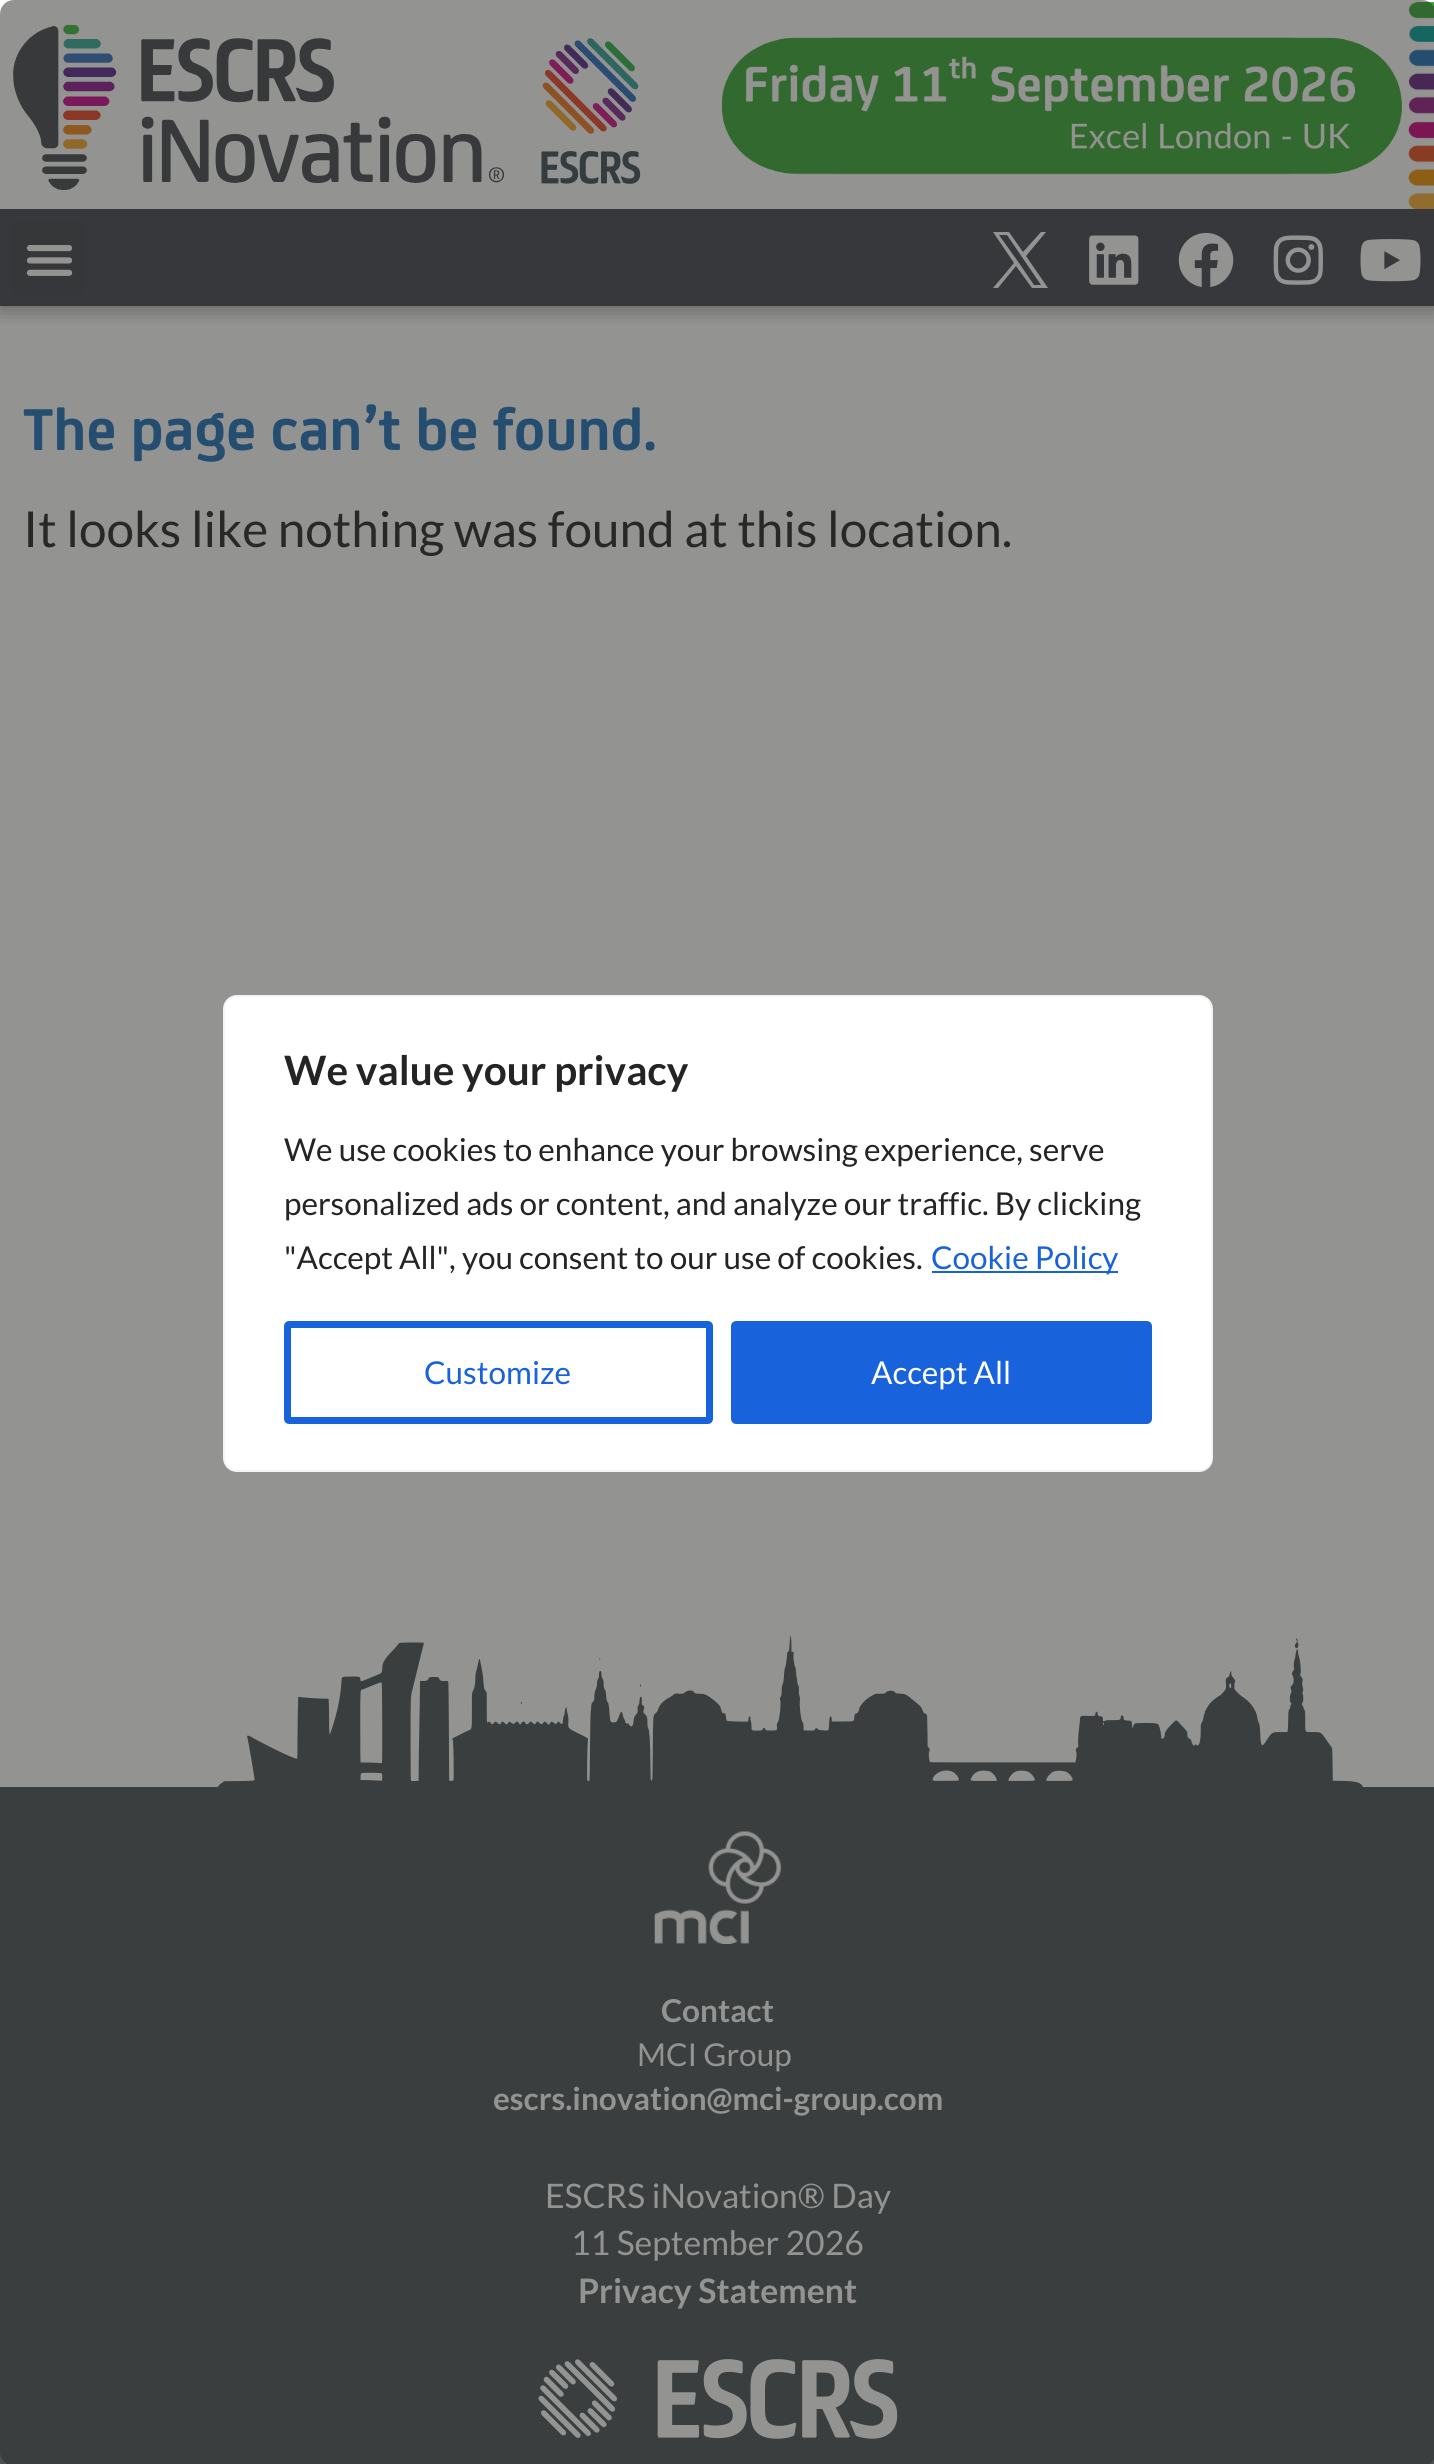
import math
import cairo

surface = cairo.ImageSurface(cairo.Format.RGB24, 1434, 2464)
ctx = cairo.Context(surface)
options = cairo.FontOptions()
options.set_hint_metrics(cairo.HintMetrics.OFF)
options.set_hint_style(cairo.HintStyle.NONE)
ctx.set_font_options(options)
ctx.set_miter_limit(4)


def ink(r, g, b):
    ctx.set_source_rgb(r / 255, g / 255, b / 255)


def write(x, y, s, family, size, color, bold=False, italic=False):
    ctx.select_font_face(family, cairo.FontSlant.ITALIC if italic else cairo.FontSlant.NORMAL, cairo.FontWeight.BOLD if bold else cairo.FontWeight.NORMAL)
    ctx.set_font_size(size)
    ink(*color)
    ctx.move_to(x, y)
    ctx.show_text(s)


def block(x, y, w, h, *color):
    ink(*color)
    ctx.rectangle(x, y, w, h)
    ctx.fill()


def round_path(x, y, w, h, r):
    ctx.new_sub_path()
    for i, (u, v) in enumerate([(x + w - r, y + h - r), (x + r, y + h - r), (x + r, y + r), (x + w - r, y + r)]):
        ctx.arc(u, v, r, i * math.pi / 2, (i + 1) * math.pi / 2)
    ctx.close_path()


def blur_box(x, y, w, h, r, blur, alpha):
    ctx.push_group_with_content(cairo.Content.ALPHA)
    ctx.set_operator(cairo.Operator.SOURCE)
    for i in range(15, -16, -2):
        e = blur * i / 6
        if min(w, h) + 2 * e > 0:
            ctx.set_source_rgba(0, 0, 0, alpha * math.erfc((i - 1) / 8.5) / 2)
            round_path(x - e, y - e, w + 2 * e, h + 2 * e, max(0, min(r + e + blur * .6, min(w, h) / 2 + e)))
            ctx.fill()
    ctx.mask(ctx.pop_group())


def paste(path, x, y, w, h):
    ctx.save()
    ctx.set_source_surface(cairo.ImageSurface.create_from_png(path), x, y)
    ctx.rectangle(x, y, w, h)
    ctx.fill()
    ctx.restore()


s1 = dict(family="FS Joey", size=63, color=(29, 113, 184), bold=True)
s2 = dict(family="Lato", size=49.5, color=(36, 36, 36))
s3 = dict(family="Lato", size=31.5, color=(255, 255, 255), bold=True)
s4 = dict(family="Lato", size=31.5, color=(255, 255, 255))
s5 = dict(family="Lato", size=33.75, color=(255, 255, 255))
s6 = dict(family="Lato", size=33.75, color=(255, 255, 255), bold=True)
s7 = dict(family="Lato", size=40.5, color=(36, 36, 36), bold=True)
s8 = dict(family="Lato", size=31.5, color=(36, 36, 36))
s9 = dict(family="Lato", size=31.5, color=(24, 99, 220))

ink(255, 255, 255)
ctx.paint()
ctx.save()
ctx.rectangle(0, 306, 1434, 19)
ctx.clip()
ink(0, 0, 0)
blur_box(0, 0, 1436, 306, 0, 11, 0.5)
ctx.restore()
paste("pic1.png", 13, 24, 491, 166)
paste("pic2.png", 541, 38, 100, 146)
paste("pic3.png", 722, 2, 712, 207)
block(0, 209, 1434, 97, 68, 70, 77)
ink(65, 67, 73)
round_path(11, 221, 75, 74, 7)
ctx.fill()
paste("pic4.png", 26, 245, 47, 31)
ink(255, 255, 255)
ctx.new_path()
ctx.move_to(1026, 256)
ctx.line_to(1046, 232)
ctx.line_to(1041, 232)
ctx.line_to(1023, 252)
ctx.line_to(1009, 232)
ctx.line_to(993, 232)
ctx.line_to(1014, 263)
ctx.line_to(993, 288)
ctx.line_to(998, 288)
ctx.line_to(1016, 266)
ctx.line_to(1032, 288)
ctx.line_to(1048, 288)
ctx.close_path()
ctx.move_to(1019, 263)
ctx.line_to(999, 235)
ctx.line_to(1007, 235)
ctx.line_to(1041, 285)
ctx.line_to(1034, 285)
ctx.close_path()
ctx.fill()
paste("pic5.png", 1089, 235, 50, 50)
paste("pic6.png", 1178, 232, 56, 55)
paste("pic7.png", 1273, 235, 50, 50)
paste("pic8.png", 1360, 239, 61, 43)
write(23, 450, "The page can’t be found.", **s1)
write(23, 547, "It looks like nothing was found at this location.", **s2)
block(0, 1787, 1434, 677, 76, 82, 86)
paste("pic9.png", 217, 1636, 1146, 151)
paste("pic10.png", 654, 1831, 127, 113)
write(661, 2022, "Contact", **s3)
write(637, 2066, "MCI Group", **s4)
write(493, 2110, "escrs.inovation@mci-group.com", **s3)
write(545, 2208, "ESCRS iNovation® Day", **s5)
write(571, 2255, "11 September 2026", **s5)
write(578, 2303, "Privacy Statement", **s6)
paste("pic11.png", 538, 2359, 360, 80)
ctx.set_source_rgba(0.176, 0.173, 0.165, 0.51)
round_path(0, 0, 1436, 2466, 14)
ctx.fill()
ink(255, 255, 255)
round_path(224, 996, 988, 475, 13)
ctx.fill_preserve()
ink(244, 244, 244)
ctx.stroke()
write(284, 1085, "We value your privacy", **s7)
write(284, 1161, "We use cookies to enhance your browsing experience, serve", **s8)
write(284, 1215, "personalized ads or content, and analyze our traffic. By clicking", **s8)
write(284, 1269, "\"Accept All\", you consent to our use of cookies.", **s8)
block(932, 1271, 186, 2, 24, 99, 220)
write(931, 1269, "Cookie Policy", **s9)
round_path(287.5, 1324.5, 422, 96, 1.5)
ctx.set_line_width(7)
ctx.stroke()
write(424, 1384, "Customize", **s9)
round_path(734.5, 1324.5, 414, 96, 1.5)
ctx.fill_preserve()
ctx.stroke()
write(871, 1384, "Accept All", **s4)
surface.write_to_png("screenshot.png")
